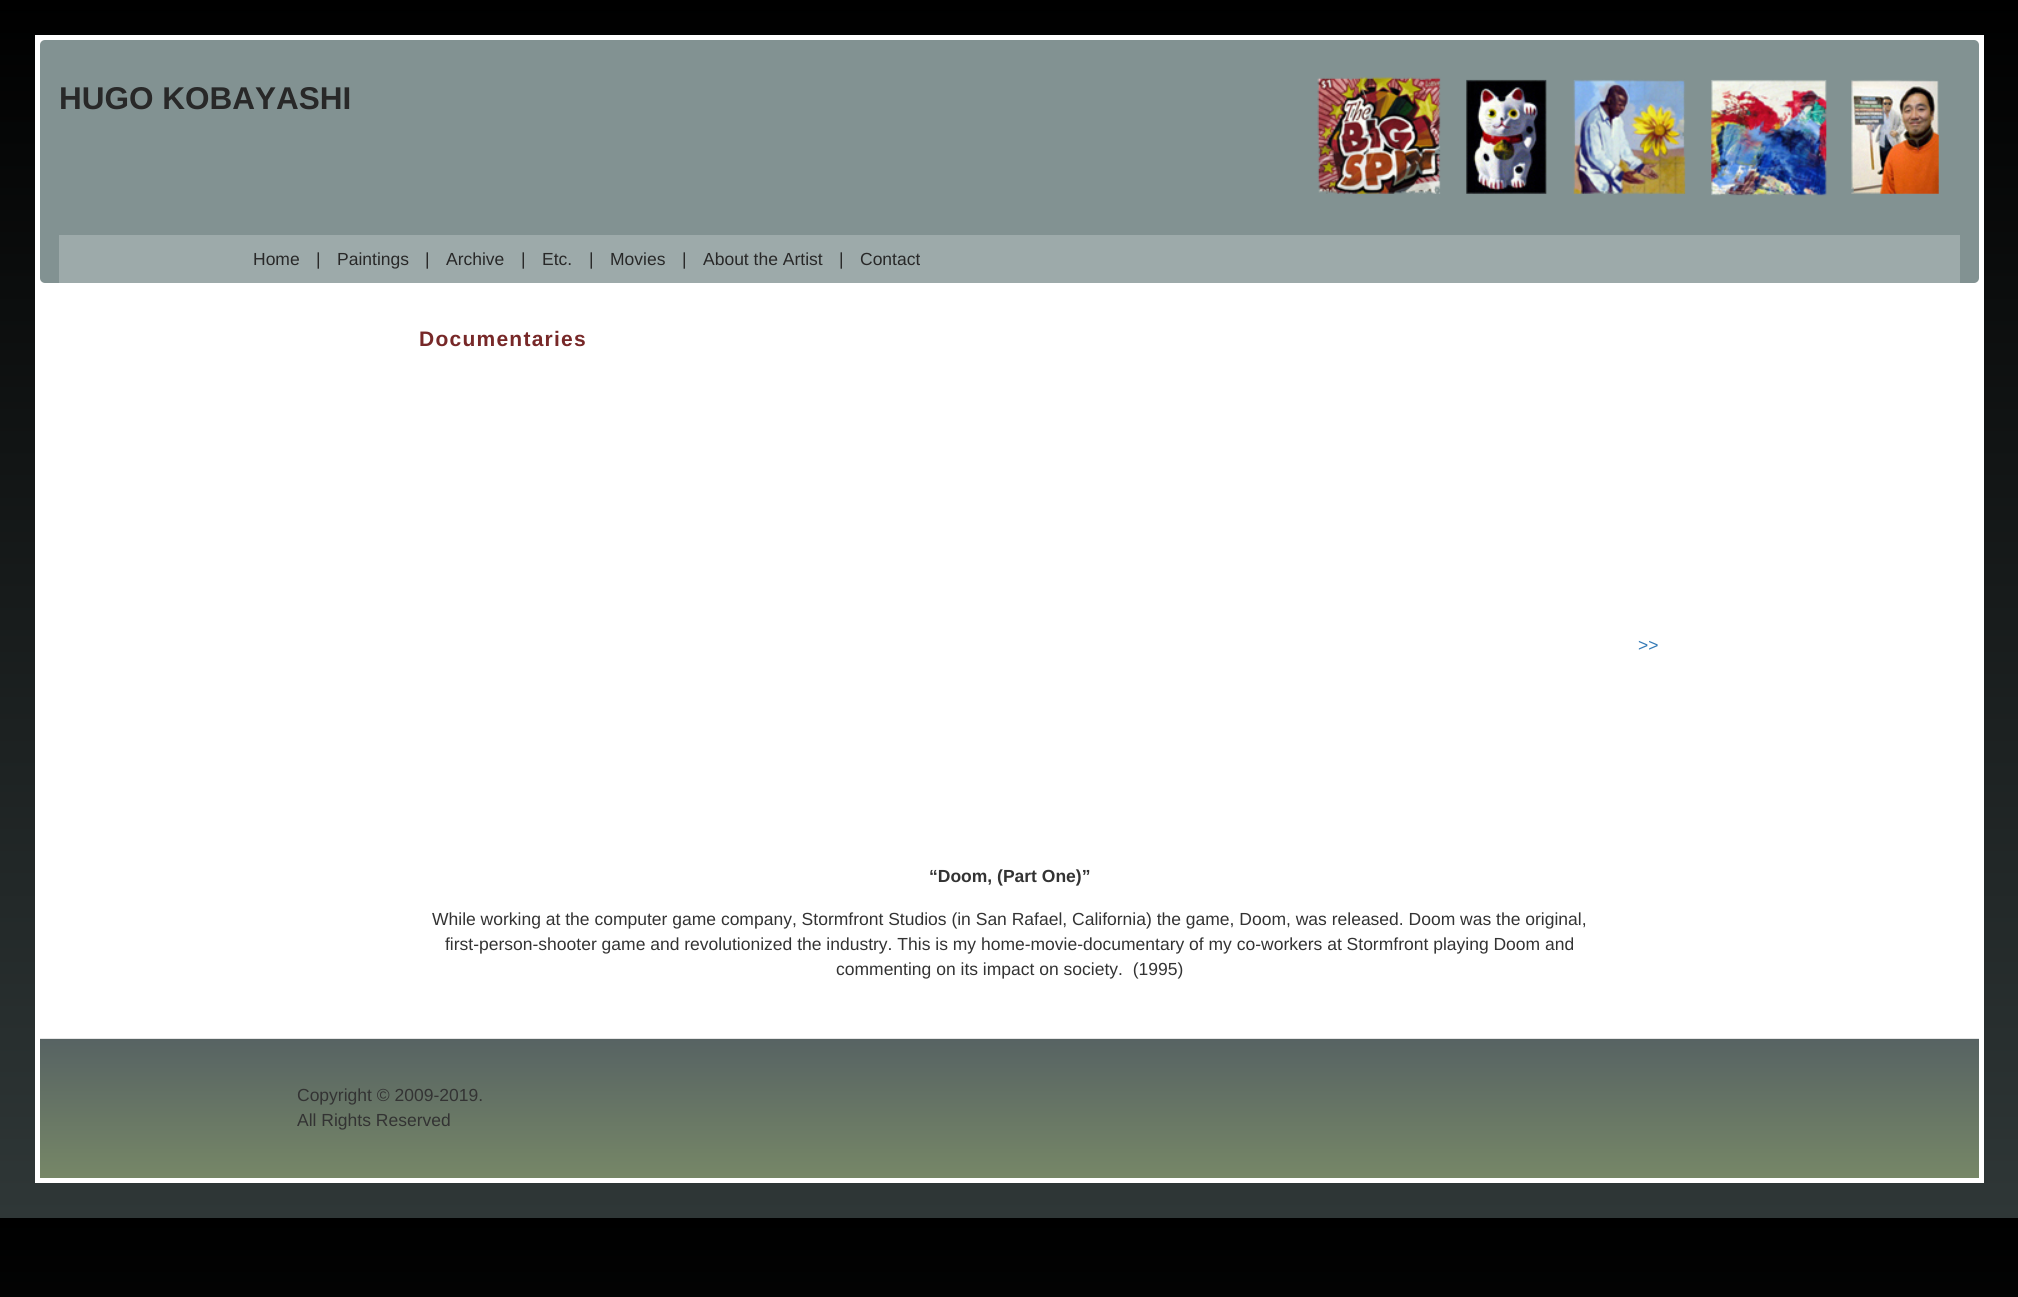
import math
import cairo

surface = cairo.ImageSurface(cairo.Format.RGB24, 2018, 1297)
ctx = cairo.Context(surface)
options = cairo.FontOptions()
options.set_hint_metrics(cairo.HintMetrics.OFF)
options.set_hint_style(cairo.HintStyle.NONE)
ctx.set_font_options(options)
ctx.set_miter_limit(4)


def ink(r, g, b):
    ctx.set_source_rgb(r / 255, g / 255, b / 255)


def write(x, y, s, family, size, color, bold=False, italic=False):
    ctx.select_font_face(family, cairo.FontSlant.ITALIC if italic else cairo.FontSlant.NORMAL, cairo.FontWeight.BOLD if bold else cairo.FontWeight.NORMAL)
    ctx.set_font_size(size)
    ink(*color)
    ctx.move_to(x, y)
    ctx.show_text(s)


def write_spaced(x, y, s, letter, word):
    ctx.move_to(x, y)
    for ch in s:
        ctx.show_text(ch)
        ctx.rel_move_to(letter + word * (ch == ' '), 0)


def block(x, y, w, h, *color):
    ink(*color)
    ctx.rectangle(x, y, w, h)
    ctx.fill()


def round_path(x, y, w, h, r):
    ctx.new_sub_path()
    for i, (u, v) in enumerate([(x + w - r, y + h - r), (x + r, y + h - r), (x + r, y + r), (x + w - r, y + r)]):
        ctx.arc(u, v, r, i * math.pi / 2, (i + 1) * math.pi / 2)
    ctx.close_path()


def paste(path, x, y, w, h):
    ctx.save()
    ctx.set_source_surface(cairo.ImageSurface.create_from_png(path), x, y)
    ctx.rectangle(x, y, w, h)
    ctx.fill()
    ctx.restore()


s1 = dict(family="Liberation Sans", size=31.5, color=(40, 40, 40), bold=True)
s2 = dict(family="Liberation Sans", size=17.5, color=(40, 40, 40))
s3 = dict(family="Liberation Sans", size=17.5, color=(51, 51, 51), bold=True)
s4 = dict(family="Liberation Sans", size=17.5, color=(51, 51, 51))
s5 = dict(family="Liberation Sans", size=17.5, color=(51, 122, 183))

ink(255, 255, 255)
ctx.paint()
gradient = cairo.LinearGradient(1009, 0, 1009, 1218)
gradient.add_color_stop_rgba(0, 0, 0, 0, 1)
gradient.add_color_stop_rgba(1, 0.184, 0.216, 0.216, 1)
ctx.set_source(gradient)
ctx.rectangle(0, 0, 2018, 1218)
ctx.fill()
gradient = cairo.LinearGradient(1009, 1217, 1009, 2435)
gradient.add_color_stop_rgba(0, 0, 0, 0, 1)
gradient.add_color_stop_rgba(1, 0.184, 0.216, 0.216, 1)
ctx.set_source(gradient)
ctx.rectangle(0, 1218, 2018, 79)
ctx.fill()
block(35, 35, 1949, 1148, 255, 255, 255)
ink(130, 146, 146)
round_path(40, 40, 1939, 243, 5)
ctx.fill()
write(59, 109, "HUGO KOBAYASHI", **s1)
paste("pic1.png", 1317, 77, 622, 119)
block(59, 235, 1901, 48, 157, 170, 170)
write(253, 265, "Home", **s2)
write(316, 265, "|", **s2)
write(337, 265, "Paintings", **s2)
write(425, 265, "|", **s2)
write(446, 265, "Archive", **s2)
write(521, 265, "|", **s2)
write(542, 265, "Etc.", **s2)
write(589, 265, "|", **s2)
write(610, 265, "Movies", **s2)
write(682, 265, "|", **s2)
write(703, 265, "About the Artist", **s2)
write(839, 265, "|", **s2)
write(860, 265, "Contact", **s2)
ctx.select_font_face("Liberation Sans", cairo.FontSlant.NORMAL, cairo.FontWeight.BOLD)
ctx.set_font_size(21)
ink(119, 40, 40)
write_spaced(419, 346, "Documentaries", 1.25, 0)
write(929, 882, "“Doom, (Part One)”", **s3)
write(432, 925, "While working at the computer game company, Stormfront Studios (in San Rafael, California) the game, Doom, was released. Doom was the original,", **s4)
write(445, 950, "first-person-shooter game and revolutionized the industry. This is my home-movie-documentary of my co-workers at Stormfront playing Doom and", **s4)
write(836, 975, "commenting on its impact on society.  (1995)", **s4)
write(1638, 651, ">>", **s5)
gradient = cairo.LinearGradient(1009, 1039, 1009, 1178)
gradient.add_color_stop_rgba(0, 0.341, 0.388, 0.388, 1)
gradient.add_color_stop_rgba(1, 0.463, 0.529, 0.404, 1)
ctx.set_source(gradient)
ctx.rectangle(40, 1039, 1939, 139)
ctx.fill()
block(40, 1038, 1939, 1, 229, 229, 229)
write(297, 1101, "Copyright © 2009-2019.", **s4)
write(297, 1126, "All Rights Reserved", **s4)
surface.write_to_png("screenshot.png")
